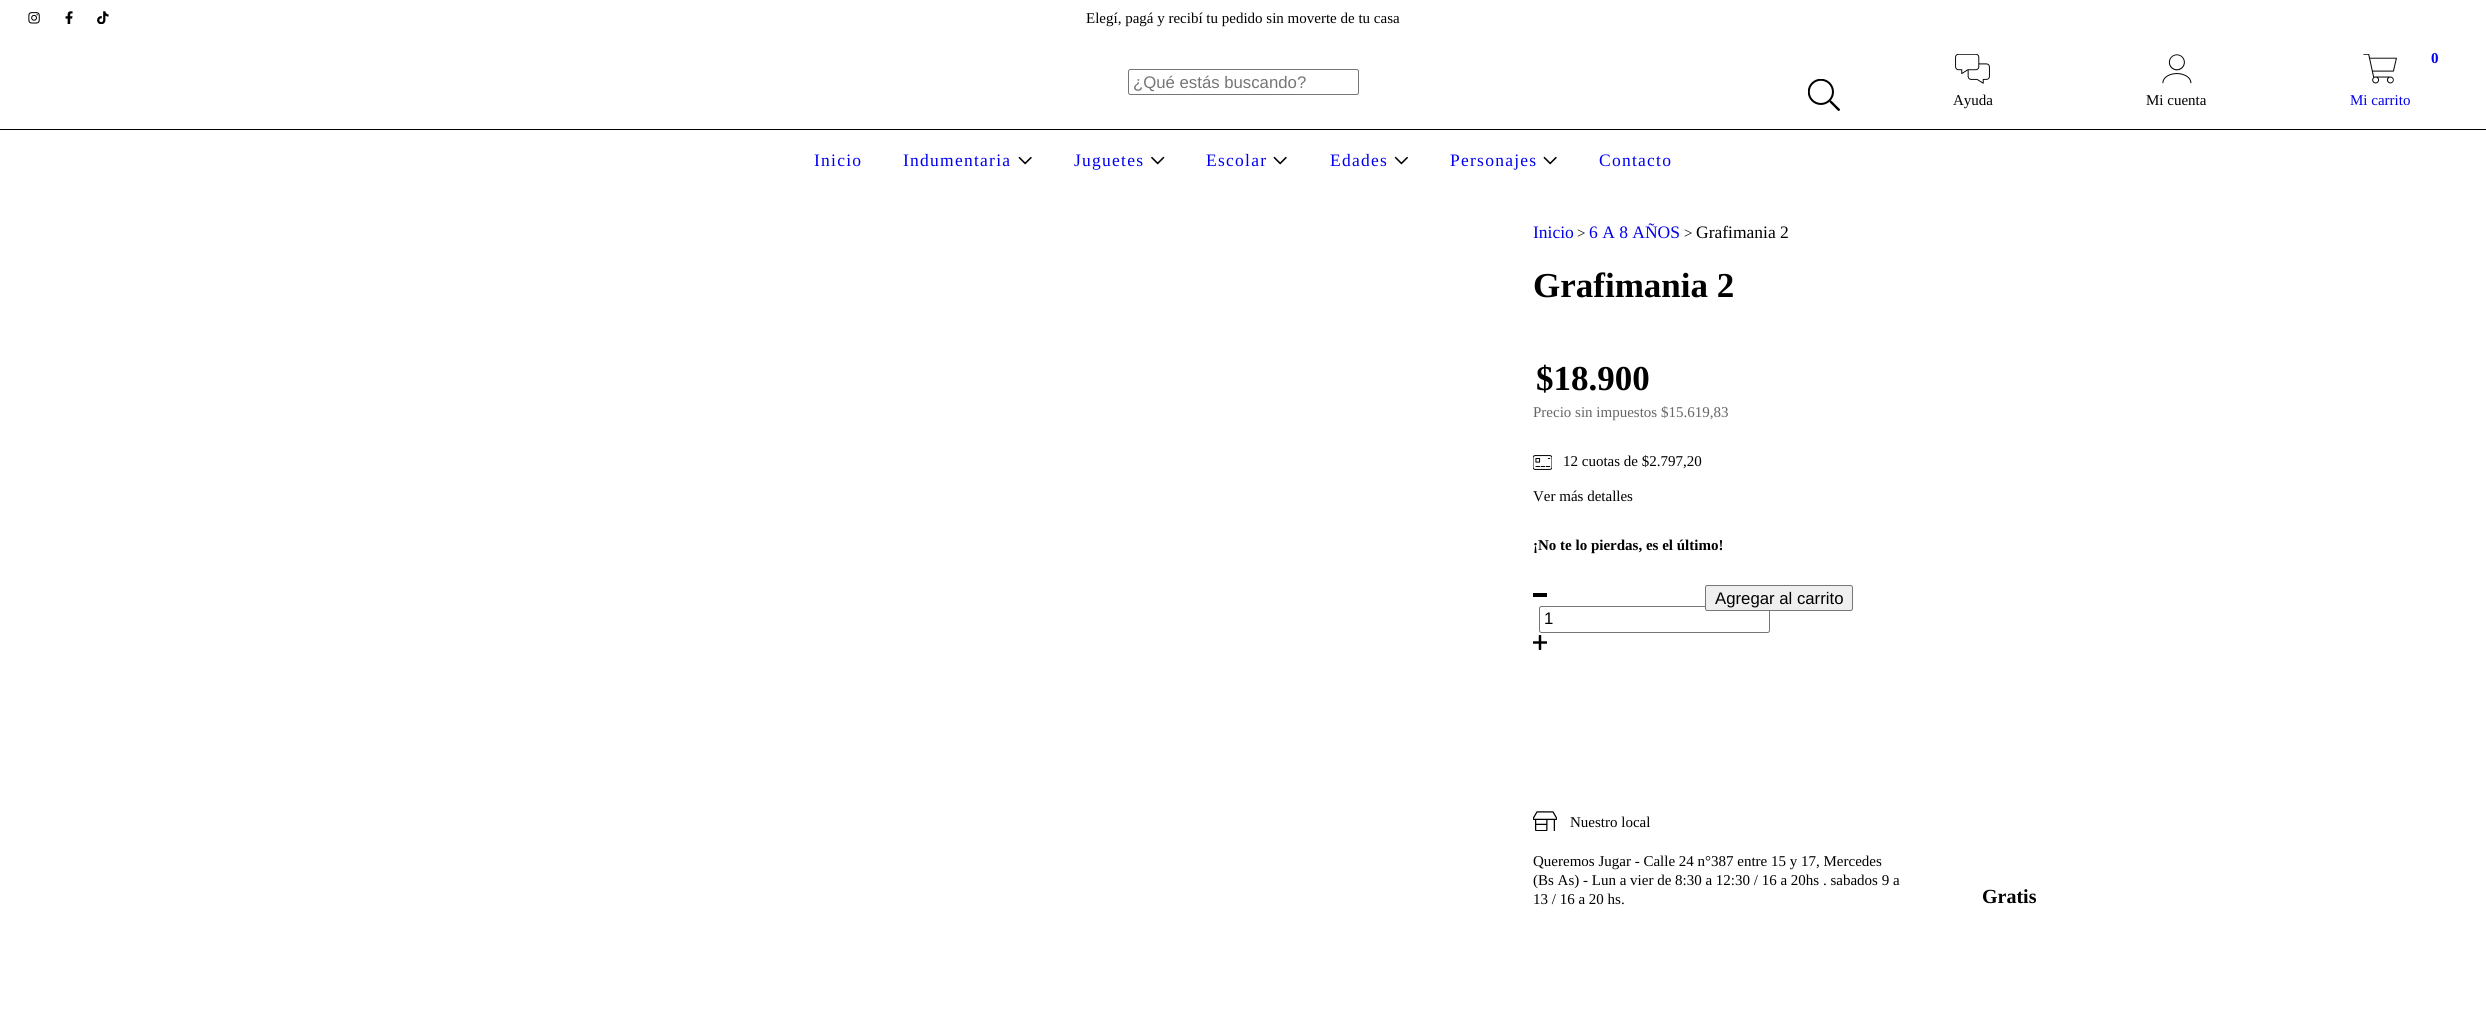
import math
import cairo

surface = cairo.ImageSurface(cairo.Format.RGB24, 2486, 1014)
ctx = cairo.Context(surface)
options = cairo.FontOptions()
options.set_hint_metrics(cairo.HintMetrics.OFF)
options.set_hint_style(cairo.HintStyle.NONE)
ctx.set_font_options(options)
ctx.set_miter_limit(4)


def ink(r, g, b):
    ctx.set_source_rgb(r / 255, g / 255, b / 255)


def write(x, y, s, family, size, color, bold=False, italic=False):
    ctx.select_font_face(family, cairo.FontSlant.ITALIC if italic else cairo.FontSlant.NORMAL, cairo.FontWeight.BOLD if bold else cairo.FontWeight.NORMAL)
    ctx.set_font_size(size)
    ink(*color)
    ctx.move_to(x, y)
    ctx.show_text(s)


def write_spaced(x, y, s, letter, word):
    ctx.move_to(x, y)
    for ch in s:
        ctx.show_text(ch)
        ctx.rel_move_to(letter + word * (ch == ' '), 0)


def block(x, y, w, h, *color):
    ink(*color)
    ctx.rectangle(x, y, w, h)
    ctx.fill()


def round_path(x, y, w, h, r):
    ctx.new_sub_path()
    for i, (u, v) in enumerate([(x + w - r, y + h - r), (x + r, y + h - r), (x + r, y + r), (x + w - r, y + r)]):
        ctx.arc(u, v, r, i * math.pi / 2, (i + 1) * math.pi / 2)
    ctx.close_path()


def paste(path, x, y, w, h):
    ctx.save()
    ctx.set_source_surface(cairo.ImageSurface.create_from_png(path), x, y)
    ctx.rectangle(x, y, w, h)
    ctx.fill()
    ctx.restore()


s1 = dict(family="Liberation Serif", size=15, color=(0, 0, 0))
s2 = dict(family="Liberation Sans", size=16.75, color=(117, 117, 117))
s3 = dict(family="Liberation Serif", size=15, color=(0, 0, 238), bold=True)
s4 = dict(family="Liberation Serif", size=15, color=(0, 0, 238))
s5 = dict(family="Liberation Serif", size=17.5, color=(0, 0, 238))
s6 = dict(family="Liberation Serif", size=17.5, color=(0, 0, 0))
s7 = dict(family="Liberation Serif", size=35, color=(0, 0, 0), bold=True)
s8 = dict(family="Liberation Serif", size=15, color=(102, 102, 102))
s9 = dict(family="Liberation Serif", size=15, color=(0, 0, 0), bold=True)
s10 = dict(family="Liberation Sans", size=16.75, color=(0, 0, 0))
s11 = dict(family="Liberation Serif", size=20, color=(0, 0, 0), bold=True)

ink(255, 255, 255)
ctx.paint()
paste("pic1.png", 28, 12, 12, 12)
paste("pic2.png", 65, 11, 8, 13)
paste("pic3.png", 97, 11, 12, 13)
write(1086, 23, "Elegí, pagá y recibí tu pedido sin moverte de tu casa", **s1)
round_path(1128.5, 69.5, 230, 25, 2)
ink(118, 118, 118)
ctx.set_line_width(1)
ctx.stroke()
write(1133, 88, "¿Qué estás buscando?", **s2)
paste("pic4.png", 1808, 79, 32, 32)
paste("pic5.png", 1955, 54, 35, 30)
write(1953, 105, "Ayuda", **s1)
paste("pic6.png", 2162, 54, 30, 30)
write(2146, 105, "Mi cuenta", **s1)
paste("pic7.png", 2363, 54, 34, 30)
write(2431, 63, "0", **s3)
write(2350, 105, "Mi carrito", **s4)
block(0, 129, 2486, 1, 0, 0, 0)
ctx.set_font_size(17.5)
ink(0, 0, 238)
write_spaced(814, 166, "Inicio", 1.25, 0)
write_spaced(903, 166, "Indumentaria", 1.25, 0)
paste("pic8.png", 1018, 156, 14, 9)
write_spaced(1074, 166, "Juguetes", 1.25, 0)
paste("pic9.png", 1151, 156, 14, 9)
write_spaced(1206, 166, "Escolar", 1.25, 0)
paste("pic8.png", 1273, 156, 14, 9)
write_spaced(1330, 166, "Edades", 1.25, 0)
paste("pic10.png", 1394, 156, 14, 9)
write_spaced(1450, 166, "Personajes", 1.25, 0)
paste("pic8.png", 1543, 156, 14, 9)
write_spaced(1599, 166, "Contacto", 1.25, 0)
write(1533, 238, "Inicio", **s5)
write(1577, 238, ">", **s1)
write(1589, 238, "6 A 8 AÑOS", **s5)
write(1684, 238, ">", **s1)
write(1696, 238, "Grafimania 2", **s6)
write(1533, 297, "Grafimania 2", **s7)
write(1536, 390, "$18.900", **s7)
write(1533, 417, "Precio sin impuestos $15.619,83", **s8)
paste("pic11.png", 1533, 455, 19, 15)
write(1563, 466, "12 cuotas de $2.797,20", **s1)
write(1533, 501, "Ver más detalles", **s1)
write(1533, 550, "¡No te lo pierdas, es el último!", **s9)
round_path(1539.5, 606.5, 230, 26, 2)
ink(118, 118, 118)
ctx.stroke()
ink(239, 239, 239)
round_path(1705.5, 585.5, 147, 25, 2)
ctx.fill_preserve()
ink(118, 118, 118)
ctx.stroke()
write(1715, 604, "Agregar al carrito", **s10)
block(1533, 593, 14, 4, 0, 0, 0)
write(1544, 624, "1", **s10)
paste("pic12.png", 1533, 635, 14, 15)
paste("pic13.png", 1533, 811, 24, 20)
write(1570, 827, "Nuestro local", **s1)
write(1533, 866, "Queremos Jugar - Calle 24 n°387 entre 15 y 17, Mercedes", **s1)
write(1533, 885, "(Bs As) - Lun a vier de 8:30 a 12:30 / 16 a 20hs . sabados 9 a", **s1)
write(1533, 904, "13 / 16 a 20 hs.", **s1)
write(1982, 903, "Gratis", **s11)
surface.write_to_png("screenshot.png")
